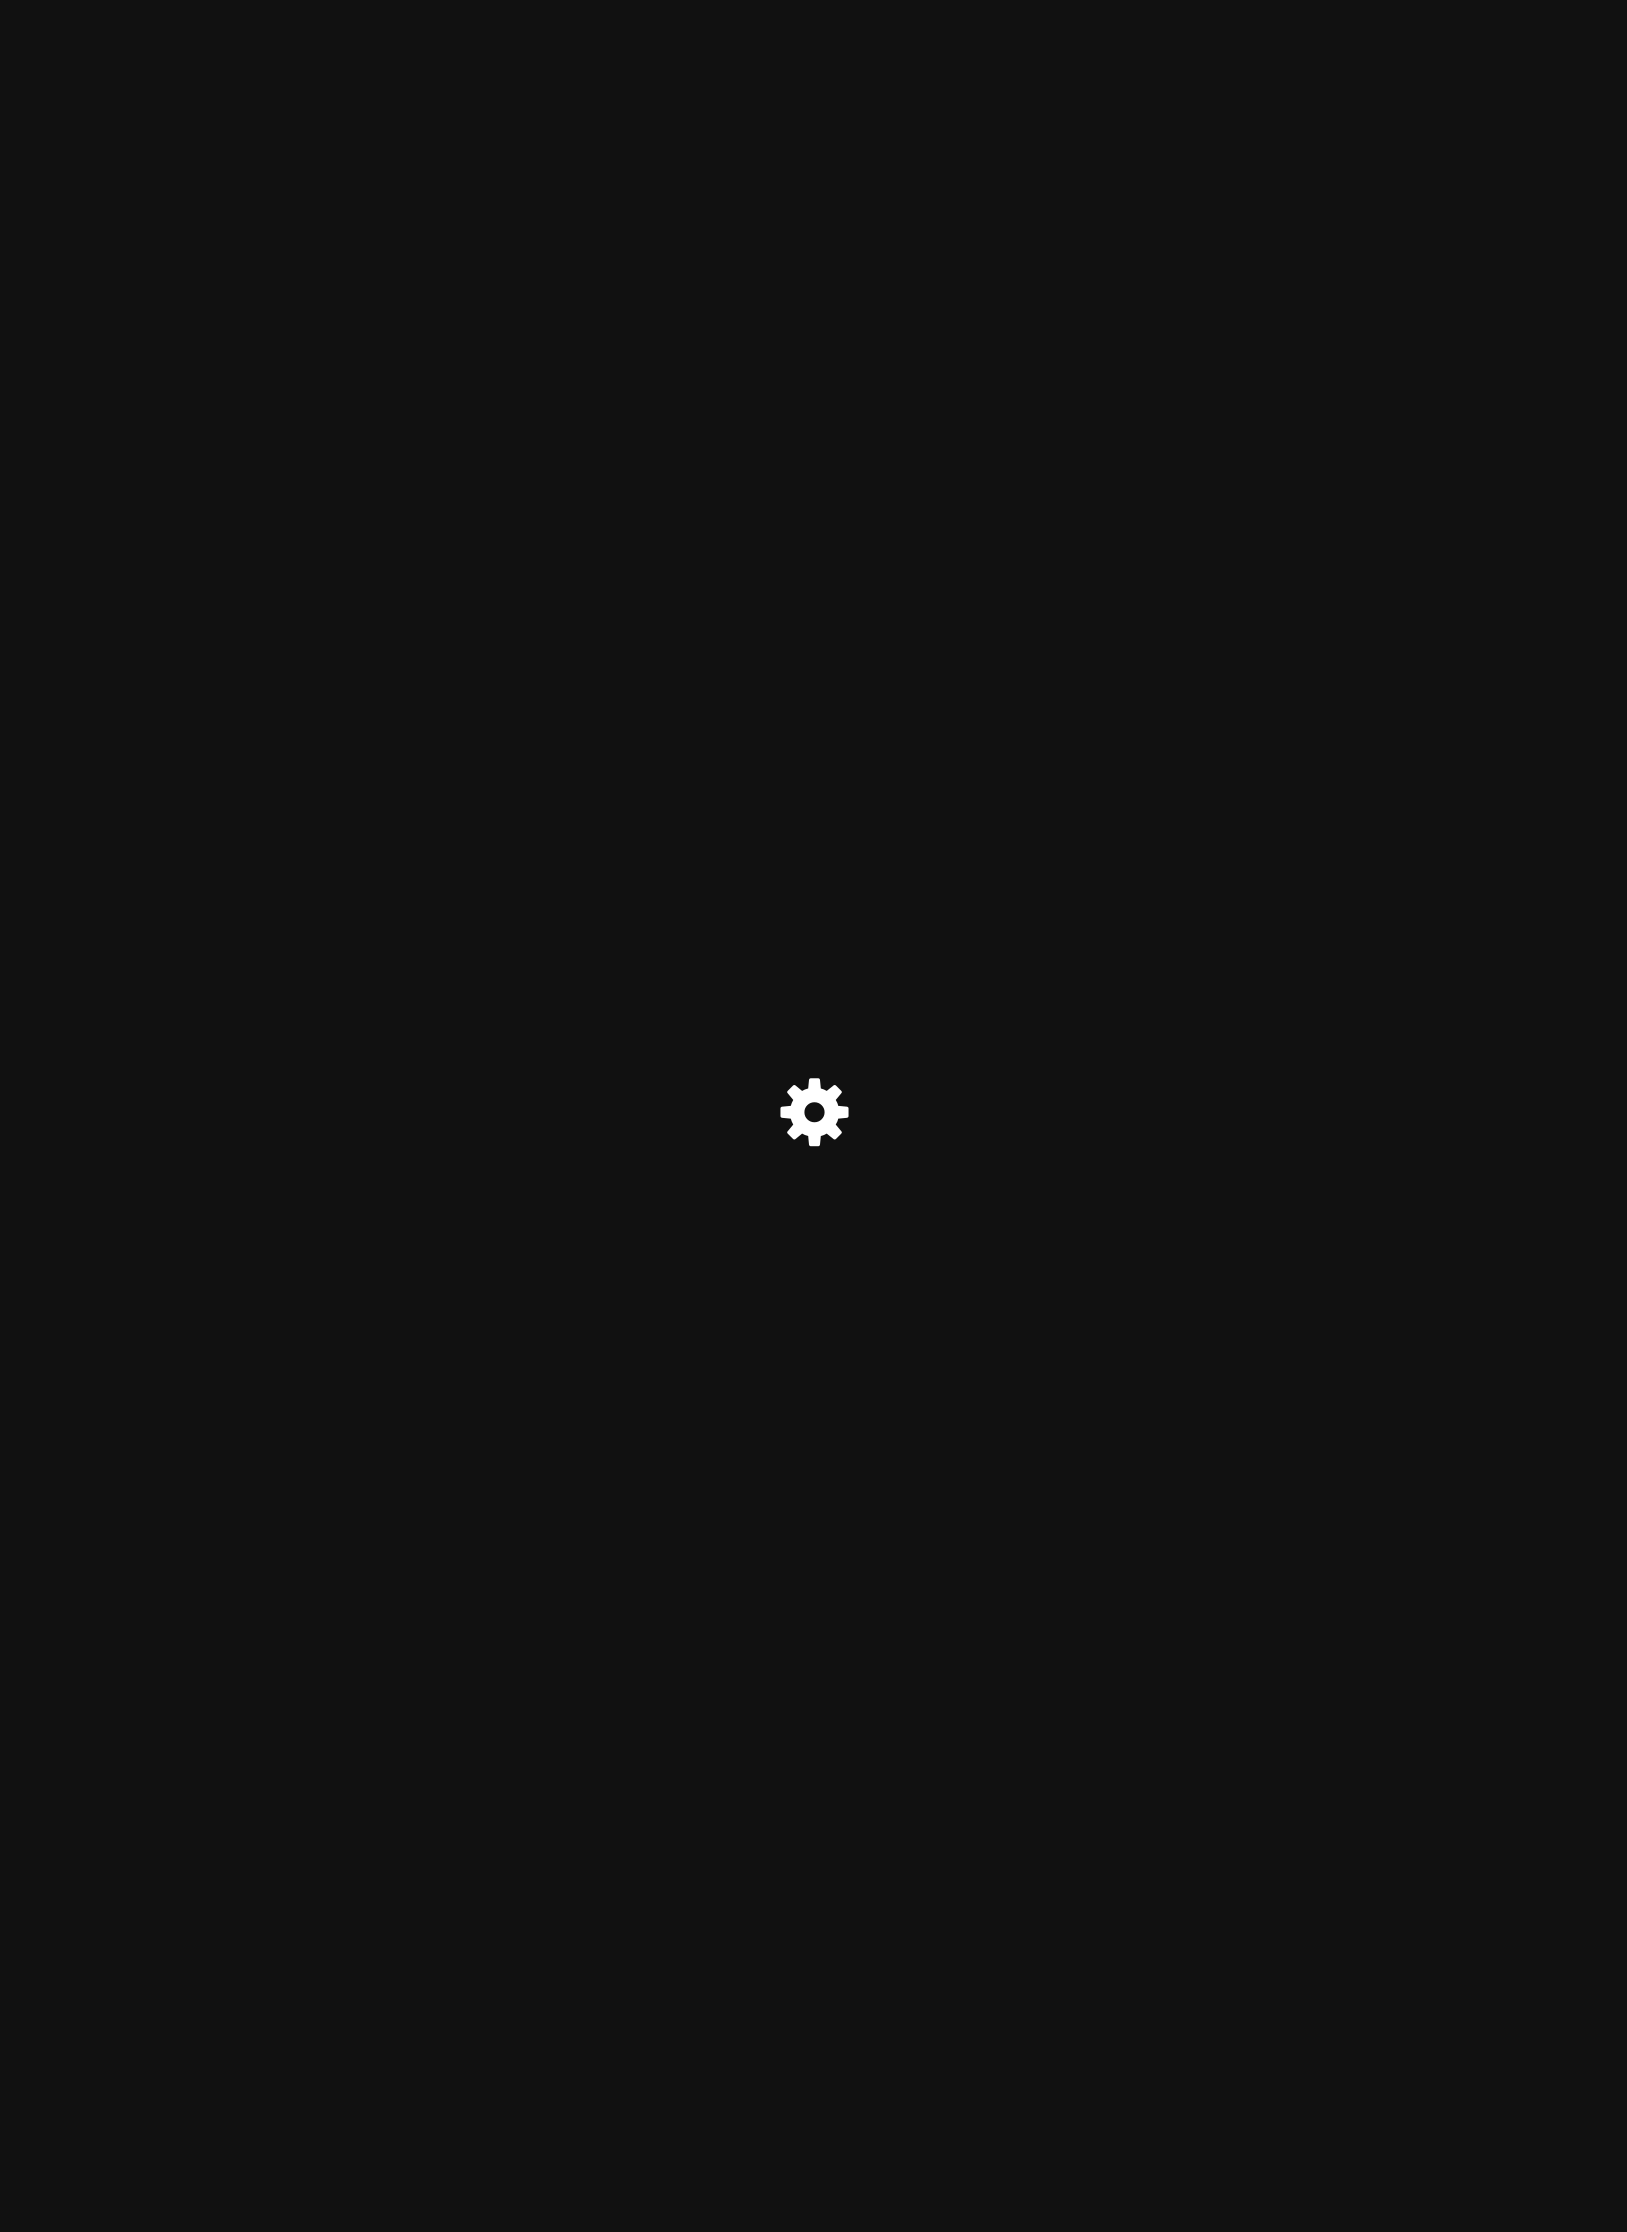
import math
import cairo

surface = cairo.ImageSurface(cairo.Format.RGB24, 1627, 2232)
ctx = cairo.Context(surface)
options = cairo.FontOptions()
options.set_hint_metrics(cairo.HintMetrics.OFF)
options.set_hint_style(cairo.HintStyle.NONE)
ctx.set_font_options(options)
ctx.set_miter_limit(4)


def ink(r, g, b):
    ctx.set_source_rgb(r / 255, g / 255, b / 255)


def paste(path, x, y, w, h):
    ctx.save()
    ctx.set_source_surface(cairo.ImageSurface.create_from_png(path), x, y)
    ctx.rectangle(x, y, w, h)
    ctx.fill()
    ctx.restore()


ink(17, 17, 17)
ctx.paint()
paste("pic1.png", 780, 1078, 69, 69)
surface.write_to_png("screenshot.png")
